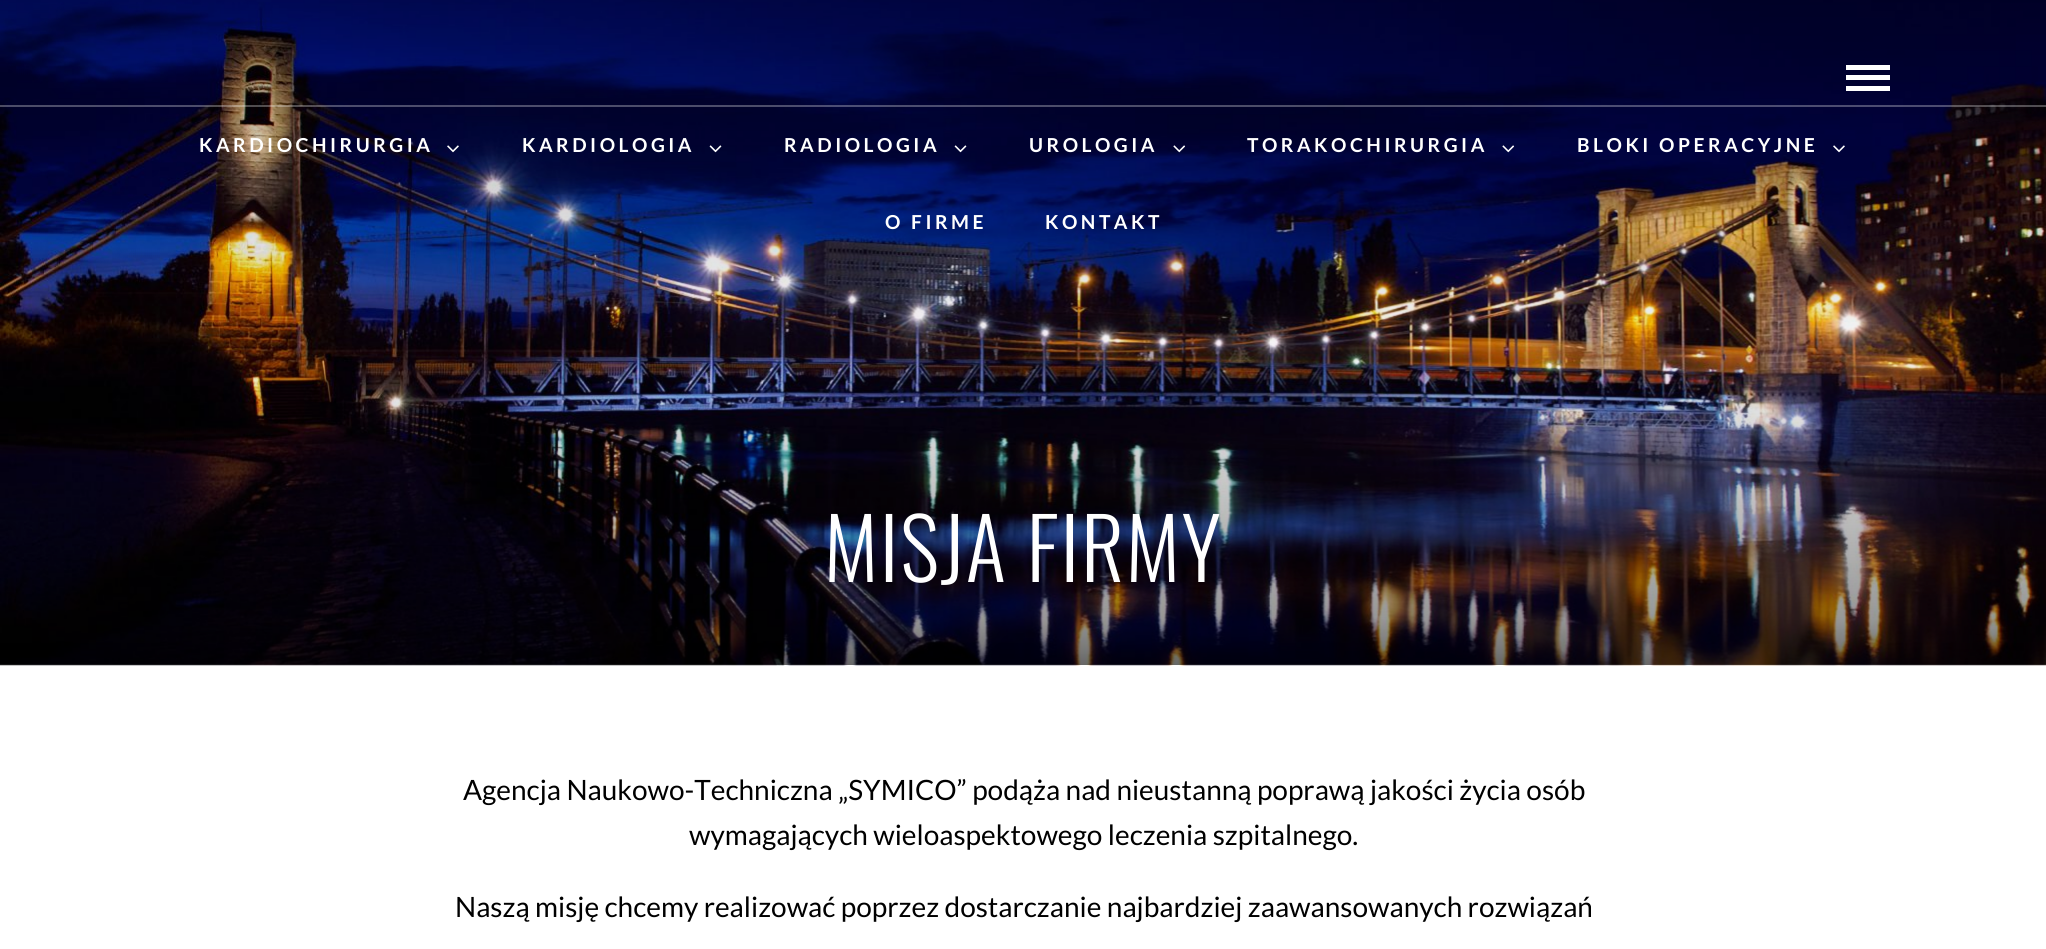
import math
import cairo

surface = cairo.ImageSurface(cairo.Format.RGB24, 2046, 949)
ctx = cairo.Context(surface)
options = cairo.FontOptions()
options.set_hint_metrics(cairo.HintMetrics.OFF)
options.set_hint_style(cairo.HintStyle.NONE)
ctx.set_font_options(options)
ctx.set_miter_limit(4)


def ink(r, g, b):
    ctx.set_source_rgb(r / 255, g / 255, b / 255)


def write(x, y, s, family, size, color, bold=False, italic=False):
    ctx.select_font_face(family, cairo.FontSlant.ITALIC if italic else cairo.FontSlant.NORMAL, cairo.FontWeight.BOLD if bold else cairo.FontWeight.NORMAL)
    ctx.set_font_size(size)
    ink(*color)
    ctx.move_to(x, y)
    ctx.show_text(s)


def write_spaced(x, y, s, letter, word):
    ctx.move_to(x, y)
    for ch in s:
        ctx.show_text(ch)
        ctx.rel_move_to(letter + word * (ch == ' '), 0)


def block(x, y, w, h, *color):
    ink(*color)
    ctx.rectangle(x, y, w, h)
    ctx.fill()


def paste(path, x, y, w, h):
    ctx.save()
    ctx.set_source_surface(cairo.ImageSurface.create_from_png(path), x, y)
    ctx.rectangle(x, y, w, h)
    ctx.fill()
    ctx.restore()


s1 = dict(family="Lato", size=28, color=(0, 0, 0))

ink(255, 255, 255)
ctx.paint()
paste("pic7.png", 0, 0, 2046, 666)
gradient = cairo.LinearGradient(1024, 0, 1024, 665)
gradient.add_color_stop_rgba(0, 0, 0, 0, 0)
gradient.add_color_stop_rgba(0.5, 0, 0, 0, 0)
gradient.add_color_stop_rgba(0.6, 0, 0, 0, 0.1)
gradient.add_color_stop_rgba(0.93, 0, 0, 0, 0.4)
gradient.add_color_stop_rgba(1, 0, 0, 0, 0.59)
ctx.set_source(gradient)
ctx.rectangle(0, 347, 2046, 318)
ctx.fill()
gradient = cairo.LinearGradient(1024, 0, 1024, 399)
gradient.add_color_stop_rgba(0, 0, 0, 0, 0.4)
gradient.add_color_stop_rgba(0.2, 0, 0, 0, 0.3)
gradient.add_color_stop_rgba(0.35, 0, 0, 0, 0.2)
gradient.add_color_stop_rgba(0.97, 0, 0, 0, 0)
ctx.set_source(gradient)
ctx.rectangle(0, 0, 2046, 360)
ctx.fill()
ctx.set_source_rgba(1, 1, 1, 0.3)
ctx.rectangle(0, 105, 2046, 2)
ctx.fill()
block(1846, 65, 44, 5, 255, 255, 255)
block(1846, 75, 44, 5, 255, 255, 255)
block(1846, 86, 44, 5, 255, 255, 255)
ctx.select_font_face("Lato", cairo.FontSlant.NORMAL, cairo.FontWeight.BOLD)
ctx.set_font_size(19.25)
write_spaced(199, 152, "KARDIOCHIRURGIA", 3.5, 0)
paste("pic1.png", 447, 145, 12, 8)
write_spaced(522, 152, "KARDIOLOGIA", 3.5, 0)
paste("pic2.png", 709, 145, 13, 8)
write_spaced(784, 152, "RADIOLOGIA", 3.5, 0)
paste("pic3.png", 954, 145, 13, 8)
write_spaced(1029, 152, "UROLOGIA", 3.5, 0)
paste("pic4.png", 1173, 145, 13, 8)
write_spaced(1247, 152, "TORAKOCHIRURGIA", 3.5, 0)
paste("pic5.png", 1502, 145, 13, 8)
write_spaced(1577, 152, "BLOKI OPERACYJNE", 3.5, 0)
paste("pic6.png", 1833, 145, 12, 8)
write_spaced(885, 229, "O FIRME", 3.5, 0)
write_spaced(1045, 229, "KONTAKT", 3.5, 0)
ctx.select_font_face("Oswald Light")
ctx.set_font_size(84)
write_spaced(824, 582, "MISJA FIRMY", 1.75, 0)
write(463, 800, "Agencja Naukowo-Techniczna „SYMICO” podąża nad nieustanną poprawą jakości życia osób", **s1)
write(689, 845, "wymagających wieloaspektowego leczenia szpitalnego.", **s1)
write(455, 917, "Naszą misję chcemy realizować poprzez dostarczanie najbardziej zaawansowanych rozwiązań", **s1)
surface.write_to_png("screenshot.png")
